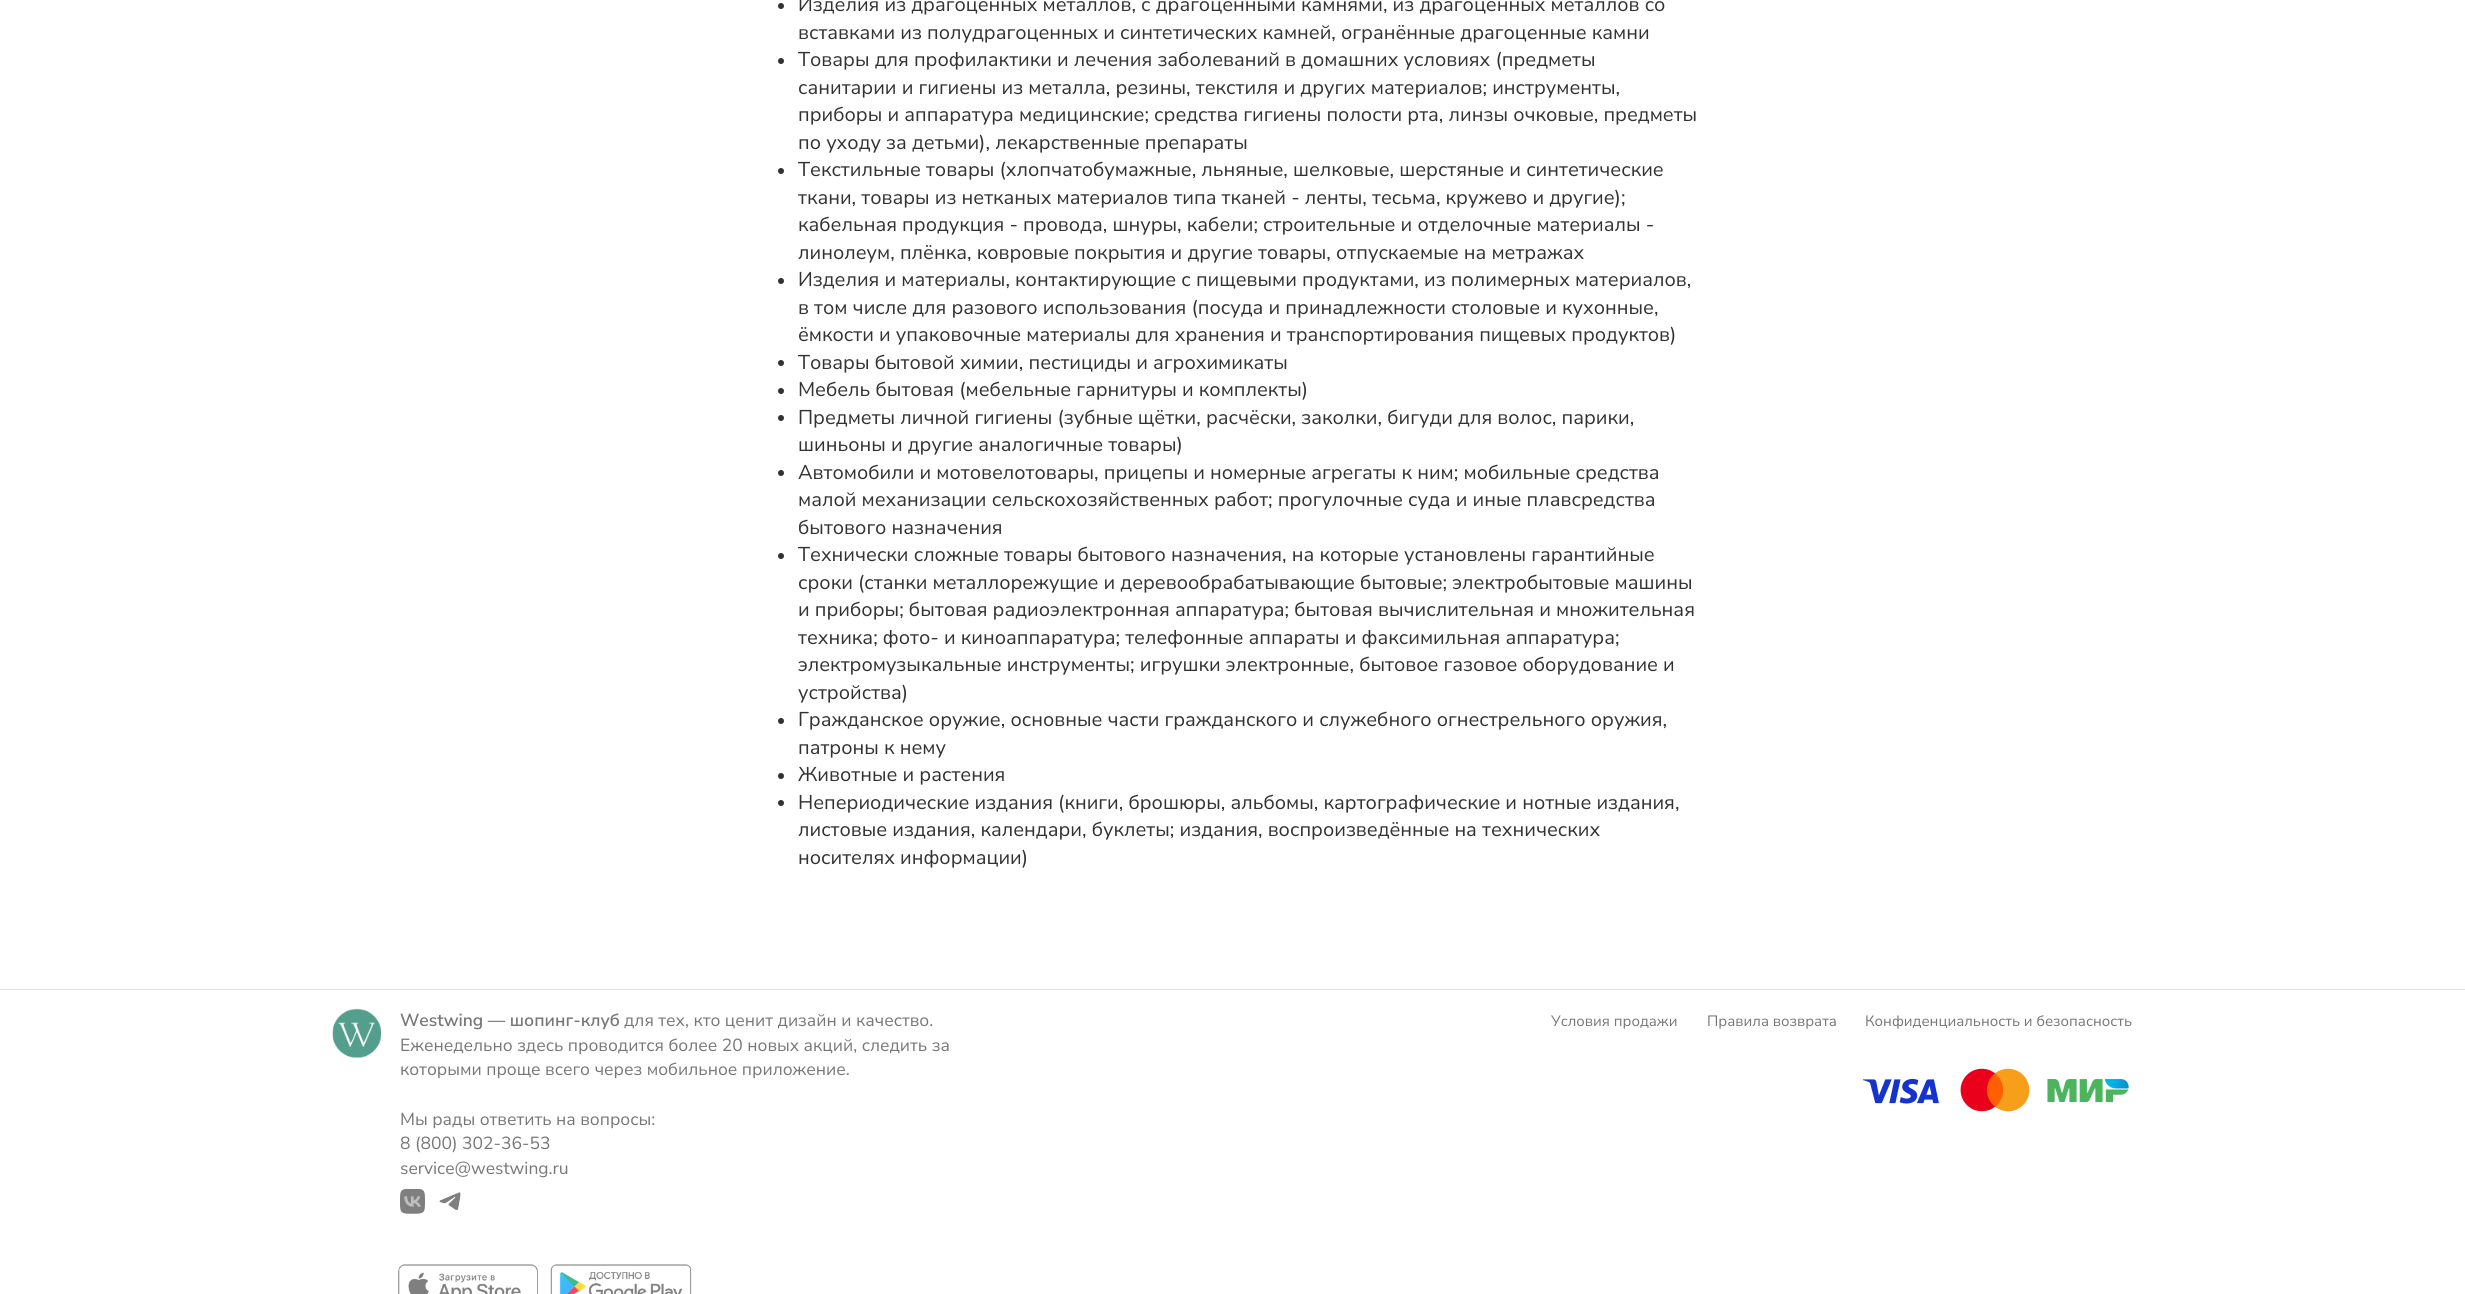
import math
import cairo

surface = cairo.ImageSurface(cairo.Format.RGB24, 2465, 1294)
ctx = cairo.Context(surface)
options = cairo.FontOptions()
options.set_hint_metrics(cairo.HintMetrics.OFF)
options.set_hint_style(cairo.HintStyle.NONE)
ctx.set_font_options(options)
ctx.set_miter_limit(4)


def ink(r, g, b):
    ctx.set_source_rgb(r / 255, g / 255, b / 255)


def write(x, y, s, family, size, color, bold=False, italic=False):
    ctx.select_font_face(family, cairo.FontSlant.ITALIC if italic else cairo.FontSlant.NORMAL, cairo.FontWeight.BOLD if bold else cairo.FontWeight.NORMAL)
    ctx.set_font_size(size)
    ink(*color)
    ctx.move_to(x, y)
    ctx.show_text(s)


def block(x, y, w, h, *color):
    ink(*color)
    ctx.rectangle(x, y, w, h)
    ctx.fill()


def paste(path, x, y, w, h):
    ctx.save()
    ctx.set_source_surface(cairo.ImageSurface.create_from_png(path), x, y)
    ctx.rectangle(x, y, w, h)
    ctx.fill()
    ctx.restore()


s1 = dict(family="Nunito Sans", size=20, color=(50, 50, 50))
s2 = dict(family="Nunito Sans SemiBold", size=17.5, color=(119, 119, 119))
s3 = dict(family="Nunito Sans", size=17.5, color=(119, 119, 119))
s4 = dict(family="Nunito Sans", size=15, color=(119, 119, 119))

ink(255, 255, 255)
ctx.paint()
ink(50, 50, 50)
ctx.arc(781, 6, 3, 0, 2 * math.pi)
ctx.fill()
write(798, 11, "Изделия из драгоценных металлов, с драгоценными камнями, из драгоценных металлов со", **s1)
write(798, 39, "вставками из полудрагоценных и синтетических камней, огранённые драгоценные камни", **s1)
ctx.new_path()
ctx.arc(781, 61, 3, 0, 2 * math.pi)
ctx.fill()
write(798, 66, "Товары для профилактики и лечения заболеваний в домашних условиях (предметы", **s1)
write(798, 94, "санитарии и гигиены из металла, резины, текстиля и других материалов; инструменты,", **s1)
write(798, 121, "приборы и аппаратура медицинские; средства гигиены полости рта, линзы очковые, предметы", **s1)
write(798, 149, "по уходу за детьми), лекарственные препараты", **s1)
ctx.new_path()
ctx.arc(781, 171, 3, 0, 2 * math.pi)
ctx.fill()
write(798, 176, "Текстильные товары (хлопчатобумажные, льняные, шелковые, шерстяные и синтетические", **s1)
write(798, 204, "ткани, товары из нетканых материалов типа тканей - ленты, тесьма, кружево и другие);", **s1)
write(798, 231, "кабельная продукция - провода, шнуры, кабели; строительные и отделочные материалы -", **s1)
write(798, 259, "линолеум, плёнка, ковровые покрытия и другие товары, отпускаемые на метражах", **s1)
ctx.new_path()
ctx.arc(781, 281, 3, 0, 2 * math.pi)
ctx.fill()
write(798, 286, "Изделия и материалы, контактирующие с пищевыми продуктами, из полимерных материалов,", **s1)
write(798, 314, "в том числе для разового использования (посуда и принадлежности столовые и кухонные,", **s1)
write(798, 341, "ёмкости и упаковочные материалы для хранения и транспортирования пищевых продуктов)", **s1)
ctx.new_path()
ctx.arc(781, 363, 3, 0, 2 * math.pi)
ctx.fill()
write(798, 369, "Товары бытовой химии, пестициды и агрохимикаты", **s1)
ctx.new_path()
ctx.arc(781, 391, 3, 0, 2 * math.pi)
ctx.fill()
write(798, 396, "Мебель бытовая (мебельные гарнитуры и комплекты)", **s1)
ctx.new_path()
ctx.arc(781, 418, 3, 0, 2 * math.pi)
ctx.fill()
write(798, 424, "Предметы личной гигиены (зубные щётки, расчёски, заколки, бигуди для волос, парики,", **s1)
write(798, 451, "шиньоны и другие аналогичные товары)", **s1)
ctx.new_path()
ctx.arc(781, 473, 3, 0, 2 * math.pi)
ctx.fill()
write(798, 479, "Автомобили и мотовелотовары, прицепы и номерные агрегаты к ним; мобильные средства", **s1)
write(798, 506, "малой механизации сельскохозяйственных работ; прогулочные суда и иные плавсредства", **s1)
write(798, 534, "бытового назначения", **s1)
ctx.new_path()
ctx.arc(781, 556, 3, 0, 2 * math.pi)
ctx.fill()
write(798, 561, "Технически сложные товары бытового назначения, на которые установлены гарантийные", **s1)
write(798, 589, "сроки (станки металлорежущие и деревообрабатывающие бытовые; электробытовые машины", **s1)
write(798, 616, "и приборы; бытовая радиоэлектронная аппаратура; бытовая вычислительная и множительная", **s1)
write(798, 644, "техника; фото- и киноаппаратура; телефонные аппараты и факсимильная аппаратура;", **s1)
write(798, 671, "электромузыкальные инструменты; игрушки электронные, бытовое газовое оборудование и", **s1)
write(798, 699, "устройства)", **s1)
ctx.new_path()
ctx.arc(781, 721, 3, 0, 2 * math.pi)
ctx.fill()
write(798, 726, "Гражданское оружие, основные части гражданского и служебного огнестрельного оружия,", **s1)
write(798, 754, "патроны к нему", **s1)
ctx.new_path()
ctx.arc(781, 776, 3, 0, 2 * math.pi)
ctx.fill()
write(798, 781, "Животные и растения", **s1)
ctx.new_path()
ctx.arc(781, 803, 3, 0, 2 * math.pi)
ctx.fill()
write(798, 809, "Непериодические издания (книги, брошюры, альбомы, картографические и нотные издания,", **s1)
write(798, 836, "листовые издания, календари, буклеты; издания, воспроизведённые на технических", **s1)
write(798, 864, "носителях информации)", **s1)
block(0, 989, 2465, 1, 210, 227, 223)
paste("pic1.png", 332, 1008, 50, 50)
write(400, 1026, "Westwing — шопинг-клуб", **s2)
write(624, 1026, "для тех, кто ценит дизайн и качество.", **s3)
write(400, 1051, "Еженедельно здесь проводится более 20 новых акций, следить за", **s3)
write(400, 1075, "которыми проще всего через мобильное приложение.", **s3)
write(400, 1125, "Мы рады ответить на вопросы:", **s3)
write(400, 1149, "8 (800) 302-36-53", **s3)
write(400, 1174, "service@westwing.ru", **s3)
paste("pic2.png", 400, 1189, 25, 25)
paste("pic3.png", 439, 1192, 22, 18)
paste("pic4.png", 398, 1264, 140, 30)
paste("pic5.png", 550, 1264, 142, 30)
write(1551, 1026, "Условия продажи", **s4)
write(1707, 1026, "Правила возврата", **s4)
write(1865, 1026, "Конфиденциальность и безопасность", **s4)
paste("pic6.png", 1862, 1078, 77, 26)
paste("pic7.png", 1960, 1068, 70, 44)
paste("pic8.png", 2047, 1079, 82, 24)
surface.write_to_png("screenshot.png")
